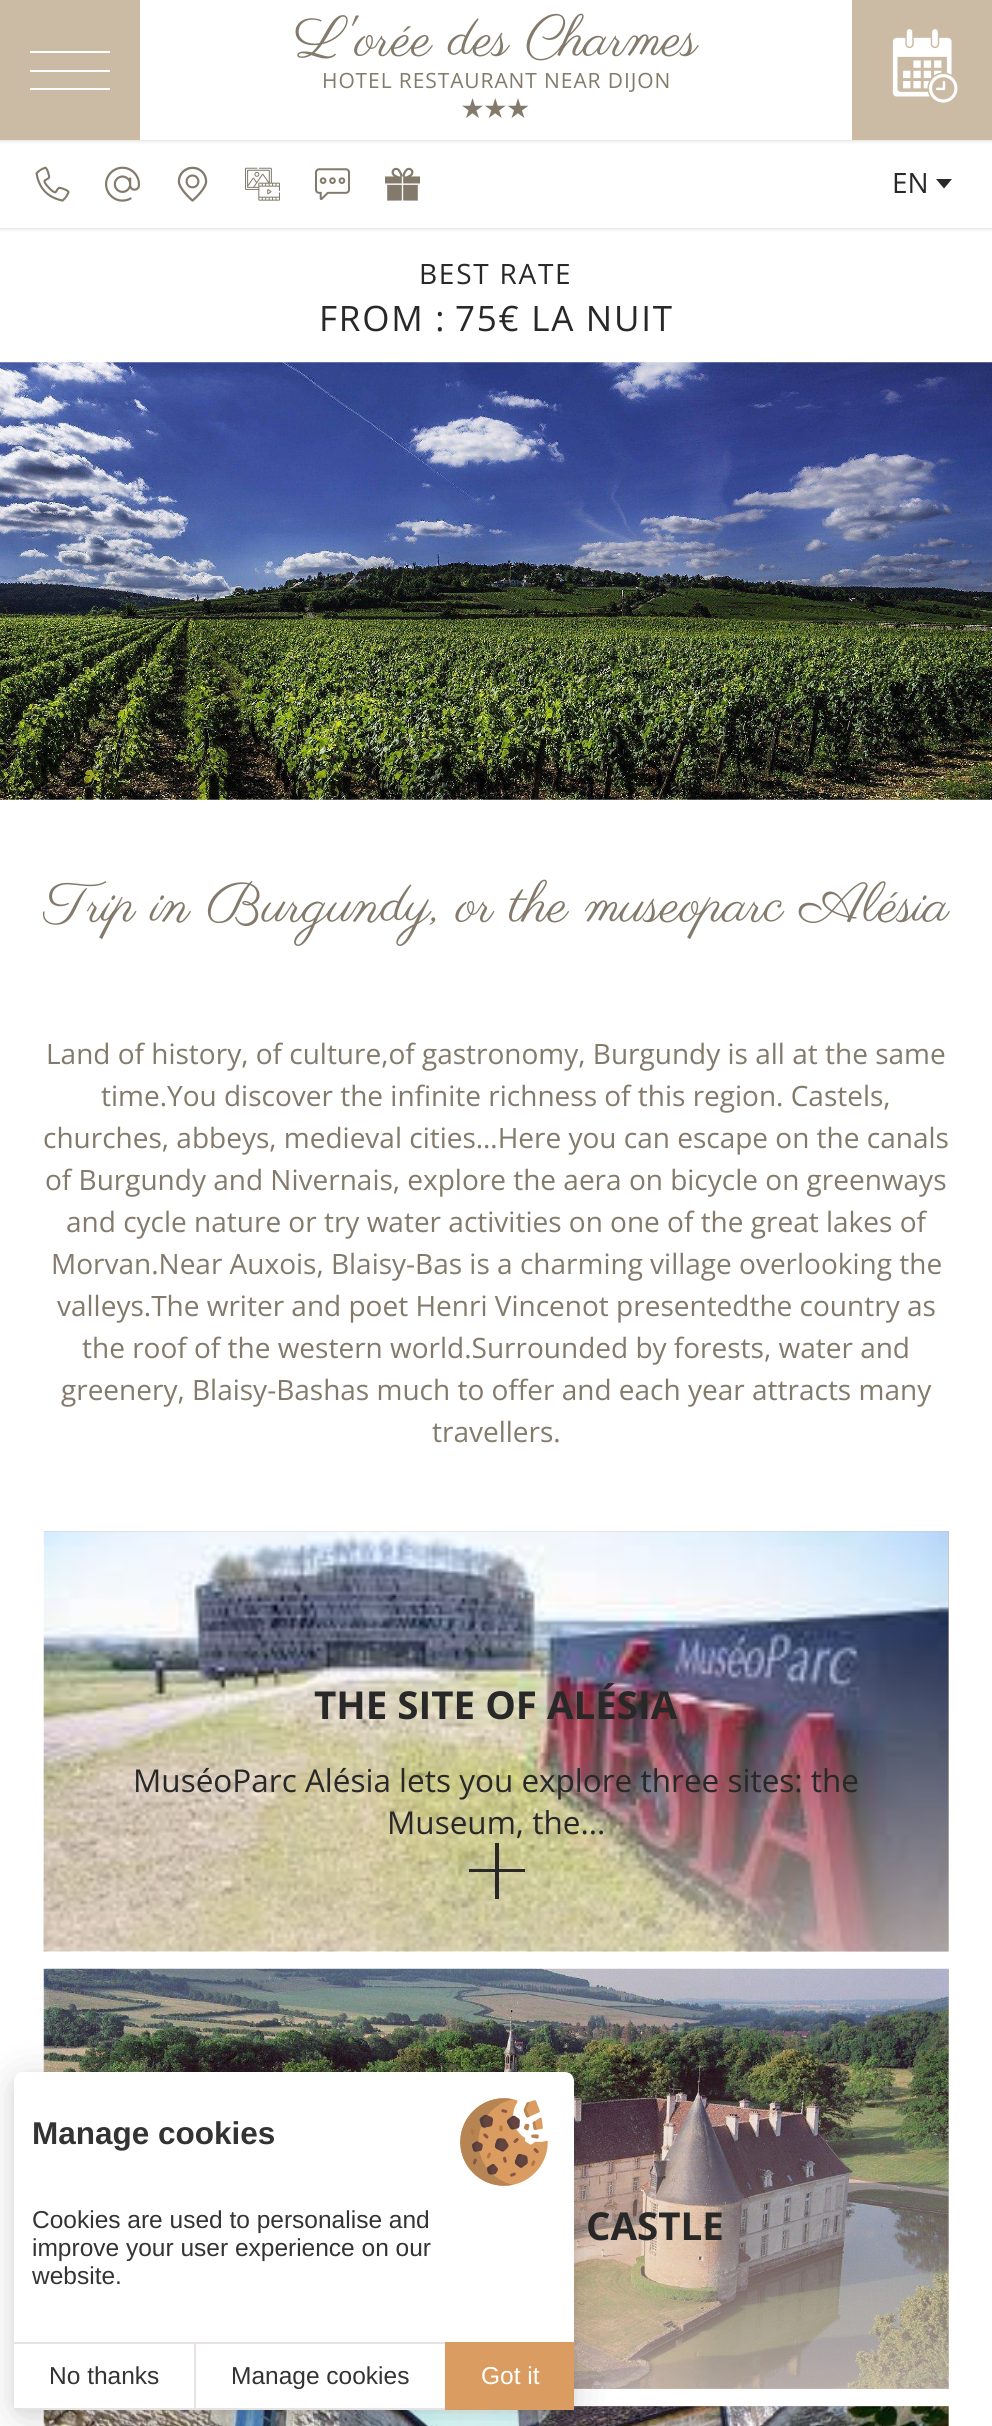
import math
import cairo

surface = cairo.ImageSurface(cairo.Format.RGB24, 992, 2426)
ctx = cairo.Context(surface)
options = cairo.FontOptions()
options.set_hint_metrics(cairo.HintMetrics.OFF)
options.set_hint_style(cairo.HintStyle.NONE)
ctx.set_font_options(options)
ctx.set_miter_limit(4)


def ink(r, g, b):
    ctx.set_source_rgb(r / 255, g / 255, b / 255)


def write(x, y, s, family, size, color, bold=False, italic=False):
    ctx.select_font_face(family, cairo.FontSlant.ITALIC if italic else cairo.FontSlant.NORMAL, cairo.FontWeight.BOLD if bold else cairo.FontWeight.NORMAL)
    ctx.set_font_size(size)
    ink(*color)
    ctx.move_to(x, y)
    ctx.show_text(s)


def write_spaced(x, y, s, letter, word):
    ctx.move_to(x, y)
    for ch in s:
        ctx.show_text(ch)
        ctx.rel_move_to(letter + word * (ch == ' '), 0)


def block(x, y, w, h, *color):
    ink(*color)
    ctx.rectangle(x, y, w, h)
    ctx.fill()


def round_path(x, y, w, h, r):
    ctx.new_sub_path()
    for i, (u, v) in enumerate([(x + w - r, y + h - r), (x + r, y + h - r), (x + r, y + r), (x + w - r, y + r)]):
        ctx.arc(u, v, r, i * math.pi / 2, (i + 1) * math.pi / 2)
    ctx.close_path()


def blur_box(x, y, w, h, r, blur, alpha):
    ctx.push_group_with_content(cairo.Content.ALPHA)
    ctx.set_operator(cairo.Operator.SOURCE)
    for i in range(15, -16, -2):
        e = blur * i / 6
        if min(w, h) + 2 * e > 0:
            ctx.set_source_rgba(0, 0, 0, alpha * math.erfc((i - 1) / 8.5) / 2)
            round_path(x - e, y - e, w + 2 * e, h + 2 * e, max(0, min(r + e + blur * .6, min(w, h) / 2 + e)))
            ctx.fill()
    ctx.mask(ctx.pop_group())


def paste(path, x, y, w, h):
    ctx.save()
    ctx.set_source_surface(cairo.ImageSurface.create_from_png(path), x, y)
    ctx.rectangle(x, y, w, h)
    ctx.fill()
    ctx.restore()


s1 = dict(family="Parisienne", size=56, color=(131, 122, 107))
s2 = dict(family="Open Sans", size=28, color=(40, 40, 40))
s3 = dict(family="Open Sans", size=28, color=(131, 122, 107))
s4 = dict(family="Open Sans", size=38.5, color=(40, 40, 40), bold=True)
s5 = dict(family="Open Sans", size=31.5, color=(40, 40, 40))
s6 = dict(family="Liberation Sans", size=31.5, color=(51, 51, 51), bold=True)
s7 = dict(family="Liberation Sans", size=24.5, color=(51, 51, 51))
s8 = dict(family="Liberation Sans", size=24.5, color=(255, 255, 255))

ink(255, 255, 255)
ctx.paint()
ink(0, 0, 0)
blur_box(0, 140, 992, 88, 0, 2.5, 0.2)
block(0, 140, 992, 88, 255, 255, 255)
ink(0, 0, 0)
blur_box(0, 0, 992, 140, 0, 2.5, 0.2)
block(140, 0, 712, 140, 255, 255, 255)
block(0, 0, 140, 140, 203, 187, 165)
block(30, 51, 80, 2, 255, 255, 255)
block(30, 70, 80, 2, 255, 255, 255)
block(30, 88, 80, 2, 255, 255, 255)
write(295, 55, "L'orée des Charmes", **s1)
ctx.select_font_face("Open Sans")
ctx.set_font_size(21)
write_spaced(322, 88, "HOTEL RESTAURANT NEAR DIJON", 0.9, 0)
paste("pic1.png", 462, 98, 21, 20)
paste("pic2.png", 485, 98, 21, 20)
paste("pic3.png", 507, 98, 22, 20)
block(852, 0, 140, 140, 203, 187, 165)
paste("pic4.png", 892, 29, 66, 74)
paste("pic5.png", 35, 166, 35, 36)
paste("pic6.png", 105, 166, 35, 36)
paste("pic7.png", 177, 166, 31, 36)
paste("pic8.png", 245, 167, 35, 34)
paste("pic9.png", 315, 168, 35, 33)
paste("pic10.png", 385, 167, 35, 34)
write(892, 193, "EN", **s2)
ctx.new_path()
ctx.move_to(944, 188.5)
ctx.line_to(936, 179)
ctx.line_to(952, 179)
ctx.close_path()
ctx.fill()
write_spaced(419, 284, "BEST RATE", 1.75, 0)
ctx.set_font_size(35)
write_spaced(319, 331, "FROM :", 1.75, 0)
write_spaced(455, 331, "75€ LA NUIT", 1.75, 0)
paste("pic11.png", 0, 362, 992, 438)
write(44, 921, "Trip in Burgundy, or the museoparc Alésia", **s1)
write(46, 1064, "Land of history, of culture,of gastronomy, Burgundy is all at the same", **s3)
write(101, 1106, "time.You discover the infinite richness of this region. Castels,", **s3)
write(43, 1148, "churches, abbeys, medieval cities…Here you can escape on the canals", **s3)
write(45, 1190, "of Burgundy and Nivernais, explore the aera on bicycle on greenways", **s3)
write(66, 1232, "and cycle nature or try water activities on one of the great lakes of", **s3)
write(51, 1274, "Morvan.Near Auxois, Blaisy-Bas is a charming village overlooking the", **s3)
write(57, 1316, "valleys.The writer and poet Henri Vincenot presentedthe country as", **s3)
write(82, 1358, "the roof of the western world.Surrounded by forests, water and", **s3)
write(61, 1400, "greenery, Blaisy-Bashas much to offer and each year attracts many", **s3)
write(432, 1442, "travellers.", **s3)
block(44, 1531, 905, 420, 203, 187, 165)
paste("pic12.png", 43, 1531, 906, 421)
gradient = cairo.LinearGradient(496, 1531, 496, 1951)
gradient.add_color_stop_rgba(0.2, 0.922, 0.855, 0.816, 0)
gradient.add_color_stop_rgba(1, 0.922, 0.855, 0.816, 0.7)
ctx.set_source(gradient)
ctx.rectangle(44, 1625, 905, 326)
ctx.fill()
write(314, 1719, "THE SITE OF ALÉSIA", **s4)
write(133, 1792, "MuséoParc Alésia lets you explore three sites: the", **s5)
write(387, 1834, "Museum, the...", **s5)
ctx.new_path()
ctx.move_to(495, 1843)
ctx.line_to(495, 1869)
ctx.line_to(469, 1869)
ctx.line_to(469, 1872)
ctx.line_to(495, 1872)
ctx.line_to(495, 1899)
ctx.line_to(499, 1899)
ctx.line_to(499, 1872)
ctx.line_to(525, 1872)
ctx.line_to(525, 1869)
ctx.line_to(499, 1869)
ctx.line_to(499, 1843)
ctx.close_path()
ctx.fill()
block(574, 1969, 375, 420, 203, 187, 165)
paste("pic13.png", 43, 1968, 906, 421)
gradient = cairo.LinearGradient(496, 1969, 496, 2389)
gradient.add_color_stop_rgba(0.2, 0.922, 0.855, 0.816, 0)
gradient.add_color_stop_rgba(1, 0.922, 0.855, 0.816, 0.7)
ctx.set_source(gradient)
ctx.rectangle(44, 2063, 905, 326)
ctx.fill()
write(586, 2240, "CASTLE", **s4)
block(574, 2406, 375, 20, 203, 187, 165)
paste("pic14.png", 43, 2406, 906, 20)
ink(0, 0, 0)
blur_box(14, 2076, 560, 337, 9, 5, 0.05)
blur_box(14, 2079, 560, 338, 9, 21, 0.15)
ink(255, 255, 255)
ctx.new_path()
ctx.move_to(23, 2072)
ctx.line_to(565, 2072)
ctx.curve_to(570, 2072, 574, 2076, 574, 2081)
ctx.line_to(574, 2410)
ctx.line_to(14, 2410)
ctx.line_to(14, 2081)
ctx.curve_to(14, 2076, 18, 2072, 23, 2072)
ctx.close_path()
ctx.fill()
paste("pic15.png", 460, 2098, 88, 88)
write(32, 2144, "Manage cookies", **s6)
write(32, 2228, "Cookies are used to personalise and", **s7)
write(32, 2256, "improve your user experience on our", **s7)
write(32, 2284, "website.", **s7)
block(14, 2342, 431, 2, 232, 227, 227)
block(14, 2408, 431, 2, 232, 227, 227)
write(49, 2384, "No thanks", **s7)
block(194, 2342, 2, 68, 232, 227, 227)
write(231, 2384, "Manage cookies", **s7)
block(445, 2342, 129, 68, 218, 156, 97)
write(481, 2384, "Got it", **s8)
surface.write_to_png("screenshot.png")
